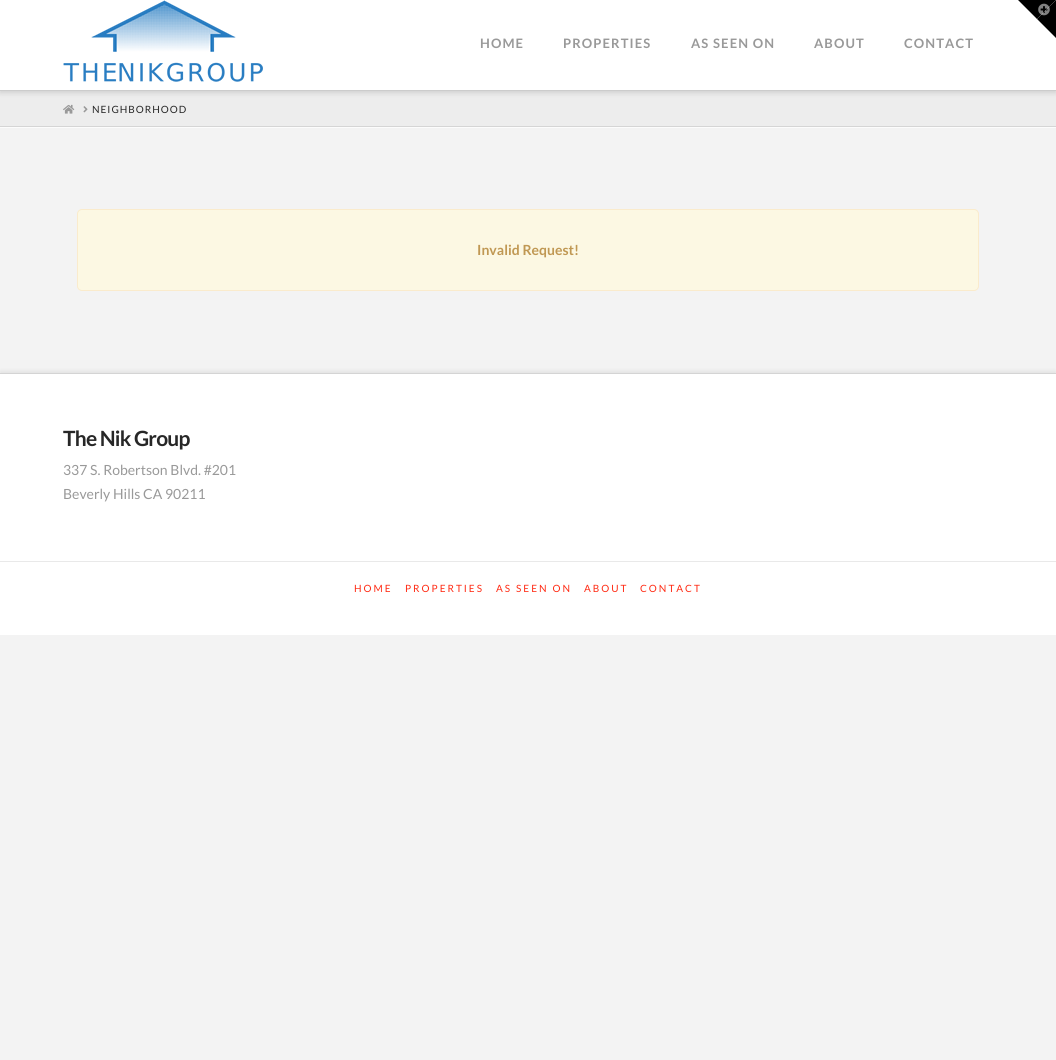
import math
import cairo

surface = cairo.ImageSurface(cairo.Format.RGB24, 1056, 1060)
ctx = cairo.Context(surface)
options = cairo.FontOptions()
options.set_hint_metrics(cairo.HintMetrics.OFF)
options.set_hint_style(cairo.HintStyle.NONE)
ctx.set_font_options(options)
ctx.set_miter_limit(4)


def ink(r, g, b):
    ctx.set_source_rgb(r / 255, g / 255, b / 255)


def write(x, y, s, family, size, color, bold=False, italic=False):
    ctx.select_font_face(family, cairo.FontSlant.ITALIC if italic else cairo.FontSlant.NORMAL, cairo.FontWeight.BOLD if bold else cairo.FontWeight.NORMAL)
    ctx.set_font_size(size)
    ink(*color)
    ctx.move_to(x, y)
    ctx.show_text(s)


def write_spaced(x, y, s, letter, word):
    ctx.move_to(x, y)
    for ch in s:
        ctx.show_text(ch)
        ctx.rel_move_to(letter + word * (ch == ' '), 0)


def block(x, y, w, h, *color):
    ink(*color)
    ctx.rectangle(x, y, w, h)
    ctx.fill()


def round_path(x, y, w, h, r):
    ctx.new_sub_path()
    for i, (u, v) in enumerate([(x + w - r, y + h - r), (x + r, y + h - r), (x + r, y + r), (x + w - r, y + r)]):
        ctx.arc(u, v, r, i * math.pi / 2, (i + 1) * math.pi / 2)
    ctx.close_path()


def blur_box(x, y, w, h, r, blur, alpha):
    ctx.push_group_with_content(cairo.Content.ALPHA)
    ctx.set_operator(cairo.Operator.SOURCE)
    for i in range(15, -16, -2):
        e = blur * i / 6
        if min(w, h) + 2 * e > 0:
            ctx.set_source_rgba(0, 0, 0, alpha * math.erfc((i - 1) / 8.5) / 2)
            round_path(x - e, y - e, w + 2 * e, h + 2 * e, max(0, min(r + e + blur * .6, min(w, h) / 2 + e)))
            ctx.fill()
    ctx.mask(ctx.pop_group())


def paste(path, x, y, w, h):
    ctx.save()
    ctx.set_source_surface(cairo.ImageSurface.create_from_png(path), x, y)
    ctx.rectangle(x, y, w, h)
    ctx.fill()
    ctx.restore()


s1 = dict(family="Lato", size=14, color=(192, 152, 83), bold=True)
s2 = dict(family="Lato", size=14, color=(153, 153, 153))

ink(243, 243, 243)
ctx.paint()
block(0, 91, 1056, 35, 237, 237, 237)
ink(0, 0, 0)
blur_box(0, 2, 1056, 91, 0, 2.5, 0.13)
block(0, 0, 1056, 90, 255, 255, 255)
ink(0, 0, 0)
ctx.new_path()
ctx.move_to(1018, 0)
ctx.line_to(1056, 0)
ctx.line_to(1037, 19)
ctx.close_path()
ctx.fill()
ctx.new_path()
ctx.move_to(1056, 0)
ctx.line_to(1056, 38)
ctx.line_to(1037, 19)
ctx.close_path()
ctx.fill()
paste("pic1.png", 1038, 3, 12, 13)
block(0, 90, 1056, 1, 204, 204, 204)
paste("pic2.png", 63, 0, 200, 82)
ctx.select_font_face("Lato", cairo.FontSlant.NORMAL, cairo.FontWeight.BOLD)
ctx.set_font_size(13)
ink(153, 153, 153)
write_spaced(480, 48, "HOME", 1.1, 0)
write_spaced(563, 48, "PROPERTIES", 1.1, 0)
write_spaced(691, 48, "AS SEEN ON", 1.1, 0)
write_spaced(814, 48, "ABOUT", 1.1, 0)
write_spaced(904, 48, "CONTACT", 1.1, 0)
block(0, 127, 1056, 1, 252, 252, 252)
block(0, 126, 1056, 1, 213, 213, 213)
paste("pic3.png", 63, 104, 12, 10)
paste("pic4.png", 83, 106, 5, 7)
ctx.select_font_face("Lato")
ctx.set_font_size(10)
ink(39, 39, 39)
write_spaced(92, 113, "NEIGHBORHOOD", 1, 0)
ink(252, 248, 227)
round_path(77.5, 209.5, 901, 81, 4.5)
ctx.fill_preserve()
ink(250, 235, 204)
ctx.set_line_width(1)
ctx.stroke()
write(477, 255, "Invalid Request!", **s1)
ink(0, 0, 0)
blur_box(0, 371, 1056, 188, 0, 2, 0.07)
block(0, 374, 1056, 187, 255, 255, 255)
block(0, 373, 1056, 1, 212, 212, 212)
ctx.set_font_size(21)
ink(39, 39, 39)
write_spaced(63, 446, "The Nik Group", -0.75, 0)
write(63, 475, "337 S. Robertson Blvd. #201", **s2)
write(63, 499, "Beverly Hills CA 90211", **s2)
block(0, 562, 1056, 73, 255, 255, 255)
block(0, 561, 1056, 1, 233, 233, 233)
ctx.set_font_size(10)
ink(255, 42, 19)
write_spaced(354, 592, "HOME", 2, 0)
write_spaced(405, 592, "PROPERTIES", 2, 0)
write_spaced(496, 592, "AS SEEN ON", 2, 0)
write_spaced(584, 592, "ABOUT", 2, 0)
write_spaced(640, 592, "CONTACT", 2, 0)
surface.write_to_png("screenshot.png")
